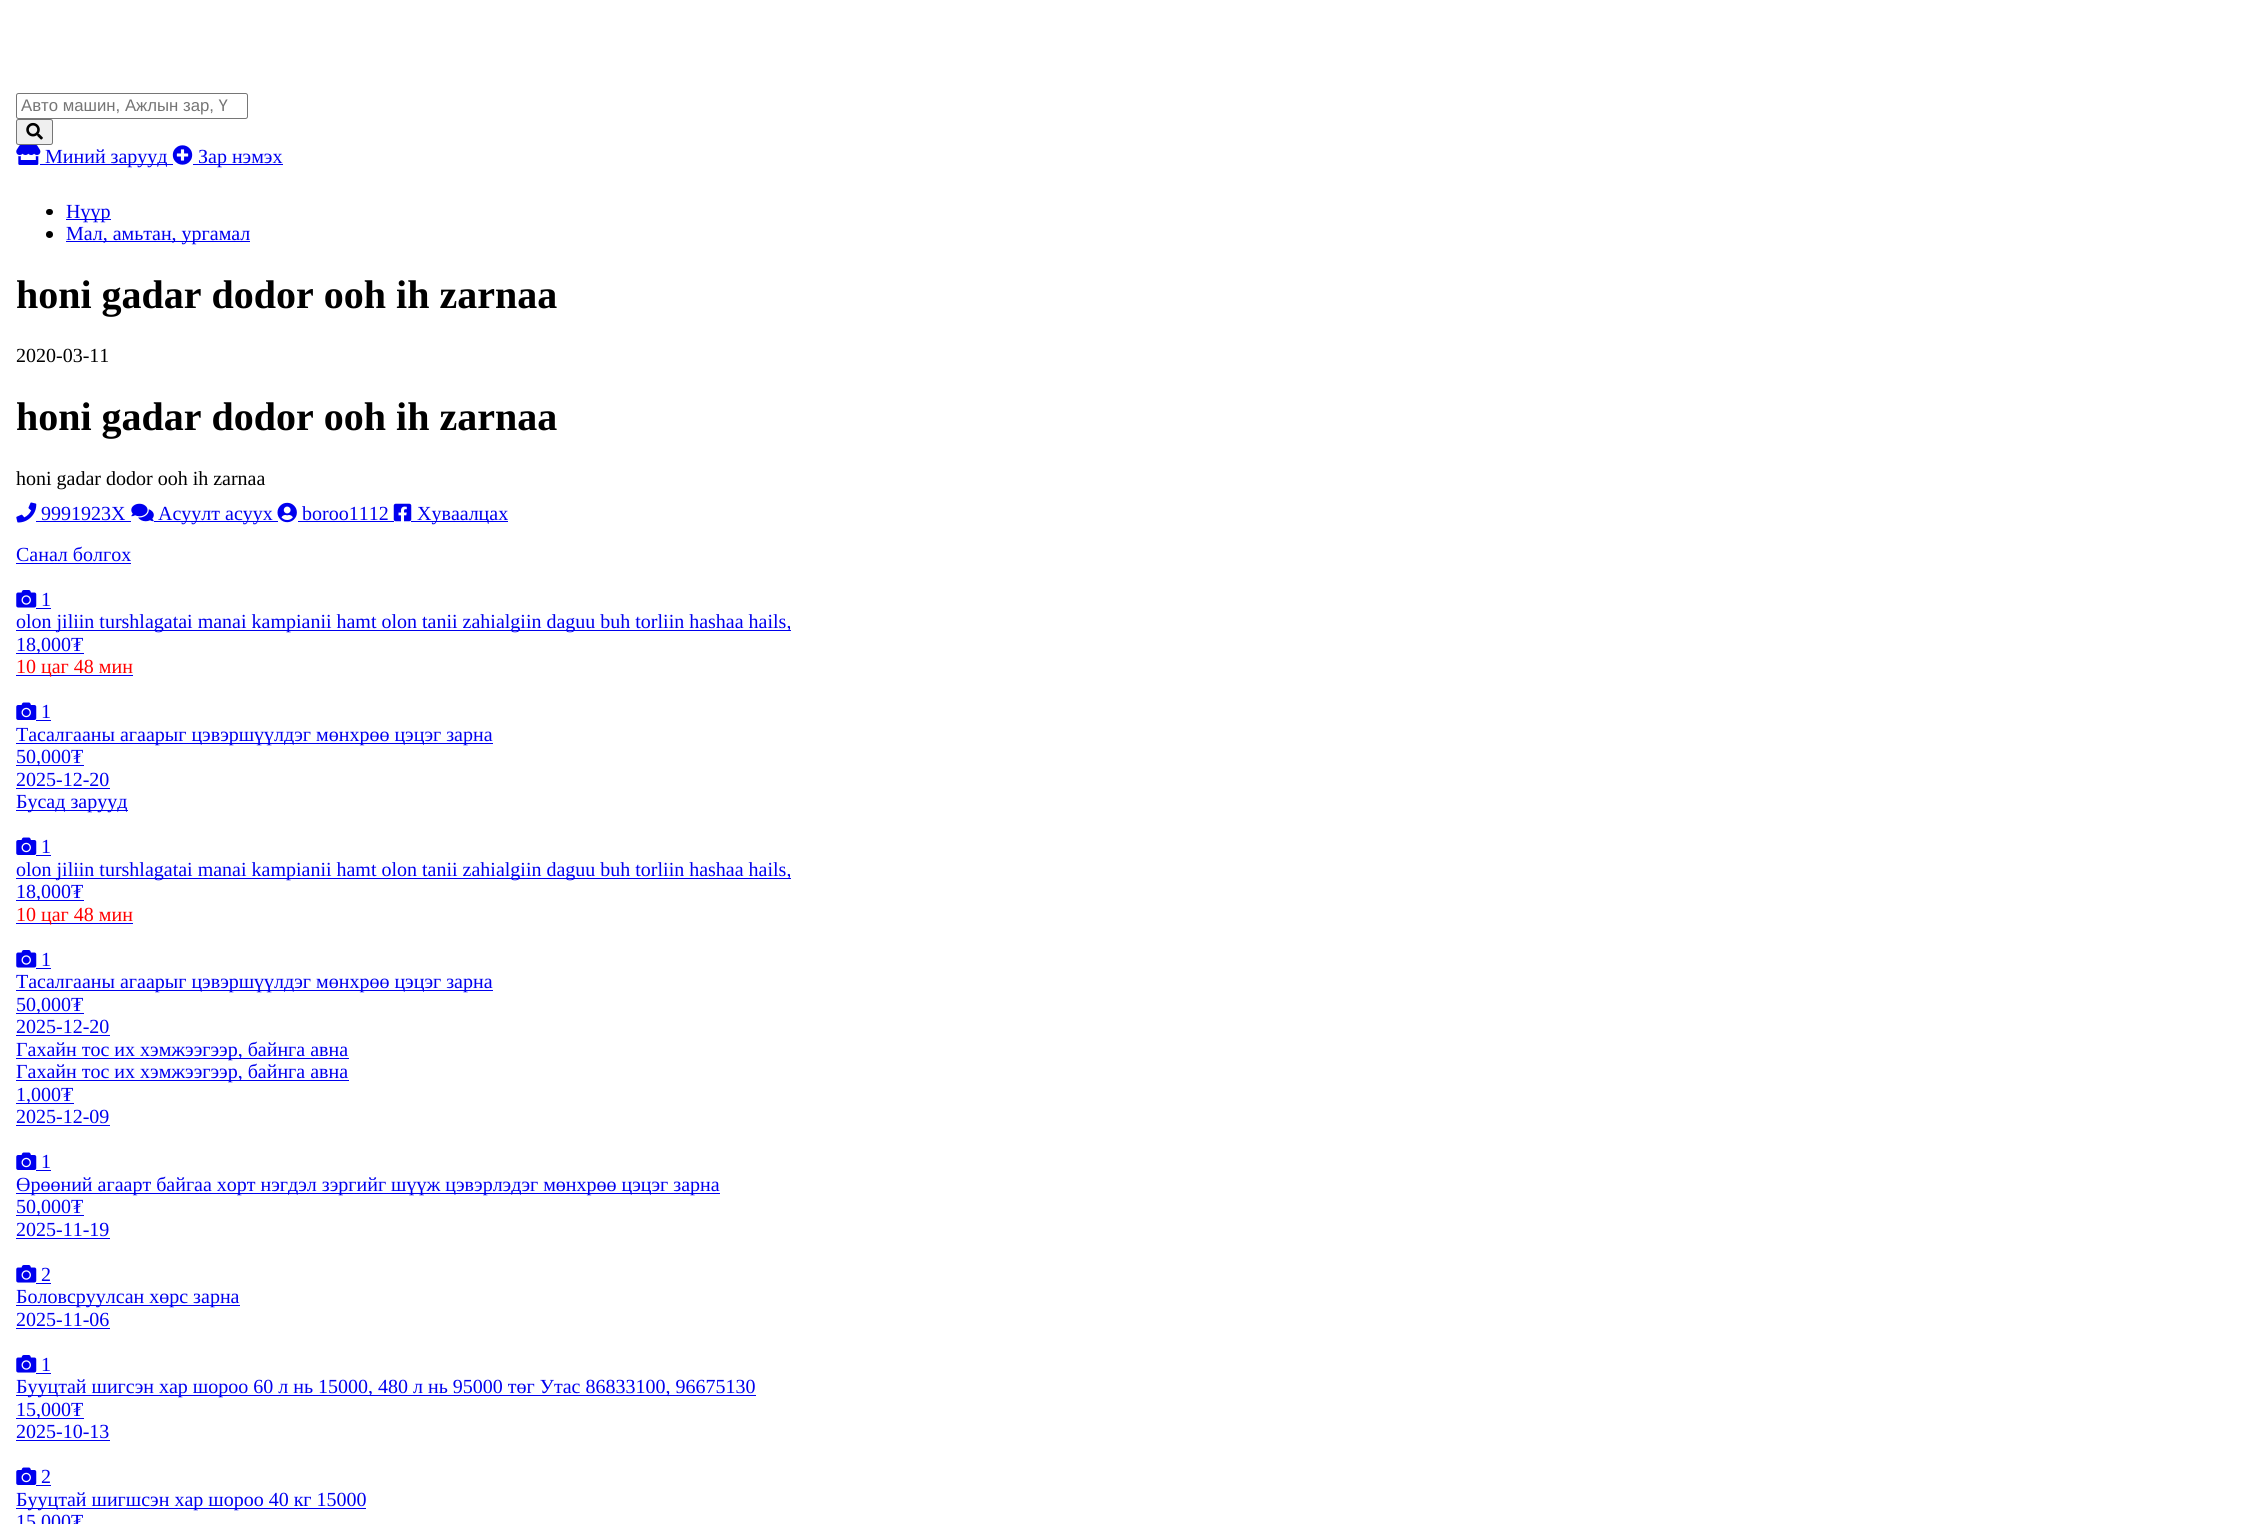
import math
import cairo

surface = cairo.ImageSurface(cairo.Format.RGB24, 2248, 1524)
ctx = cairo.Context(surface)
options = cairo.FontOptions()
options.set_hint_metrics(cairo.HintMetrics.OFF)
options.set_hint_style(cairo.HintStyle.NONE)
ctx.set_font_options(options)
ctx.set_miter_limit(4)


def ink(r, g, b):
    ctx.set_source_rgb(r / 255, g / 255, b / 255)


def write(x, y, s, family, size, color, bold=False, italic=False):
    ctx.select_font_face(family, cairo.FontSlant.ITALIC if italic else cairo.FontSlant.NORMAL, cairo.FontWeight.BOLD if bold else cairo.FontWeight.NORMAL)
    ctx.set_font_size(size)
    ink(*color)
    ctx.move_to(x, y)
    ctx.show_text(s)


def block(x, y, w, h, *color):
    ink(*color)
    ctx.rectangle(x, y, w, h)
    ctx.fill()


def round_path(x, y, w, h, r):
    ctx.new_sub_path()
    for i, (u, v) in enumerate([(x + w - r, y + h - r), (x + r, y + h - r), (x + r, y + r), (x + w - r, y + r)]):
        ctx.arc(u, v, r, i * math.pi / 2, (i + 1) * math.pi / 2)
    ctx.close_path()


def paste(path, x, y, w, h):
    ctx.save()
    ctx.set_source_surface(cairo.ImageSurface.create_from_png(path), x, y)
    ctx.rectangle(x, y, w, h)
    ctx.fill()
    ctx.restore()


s1 = dict(family="Liberation Sans", size=16.75, color=(117, 117, 117))
s2 = dict(family="Liberation Serif", size=20, color=(0, 0, 238))
s3 = dict(family="Liberation Serif", size=40, color=(0, 0, 0), bold=True)
s4 = dict(family="Liberation Serif", size=20, color=(0, 0, 0))
s5 = dict(family="Liberation Serif", size=20, color=(255, 0, 0))

ink(255, 255, 255)
ctx.paint()
round_path(16.5, 93.5, 231, 25, 2)
ink(118, 118, 118)
ctx.set_line_width(1)
ctx.stroke()
write(21, 111, "Авто машин, Ажлын зар, Ү", **s1)
ink(239, 239, 239)
round_path(16.5, 119.5, 36, 25, 2)
ctx.fill_preserve()
ink(118, 118, 118)
ctx.stroke()
paste("pic1.png", 26, 122, 17, 18)
paste("pic2.png", 16, 145, 25, 20)
block(40, 164, 133, 1, 0, 0, 238)
write(45, 163, "Миний зарууд", **s2)
paste("pic3.png", 172, 145, 21, 20)
block(193, 164, 90, 1, 0, 0, 238)
write(198, 163, "Зар нэмэх", **s2)
ink(0, 0, 0)
round_path(46, 209, 7, 6, 3)
ctx.fill()
block(66, 219, 45, 1, 0, 0, 238)
write(66, 218, "Нүүр", **s2)
ink(0, 0, 0)
ctx.new_path()
ctx.arc(49.5, 234.5, 3.5, 0, 2 * math.pi)
ctx.fill()
block(66, 241, 184, 1, 0, 0, 238)
write(66, 240, "Мал, амьтан, ургамал", **s2)
write(16, 308, "honi gadar dodor ooh ih zarnaa", **s3)
write(16, 362, "2020-03-11", **s4)
write(16, 430, "honi gadar dodor ooh ih zarnaa", **s3)
write(16, 485, "honi gadar dodor ooh ih zarnaa", **s4)
paste("pic4.png", 16, 502, 21, 21)
write(41, 520, "9991923X", **s2)
block(36, 521, 95, 1, 0, 0, 238)
paste("pic5.png", 131, 503, 23, 19)
block(154, 521, 124, 1, 0, 0, 238)
write(158, 520, "Асуулт асуух", **s2)
paste("pic6.png", 277, 502, 20, 21)
write(302, 520, "boroo1112", **s2)
block(298, 521, 96, 1, 0, 0, 238)
paste("pic7.png", 393, 503, 19, 19)
block(411, 521, 97, 1, 0, 0, 238)
write(417, 520, "Хуваалцах", **s2)
write(16, 561, "Санал болгох", **s2)
block(16, 563, 115, 1, 0, 0, 238)
paste("pic8.png", 16, 590, 21, 18)
write(41, 606, "1", **s2)
block(36, 608, 15, 1, 0, 0, 238)
block(16, 630, 775, 1, 0, 0, 238)
write(16, 628, "olon jiliin turshlagatai manai kampianii hamt olon tanii zahialgiin daguu buh torliin hashaa hails,", **s2)
block(16, 653, 68, 1, 0, 0, 238)
write(16, 651, "18,000₮", **s2)
block(16, 675, 117, 1, 0, 0, 238)
write(16, 673, "10 цаг 48 мин", **s5)
paste("pic9.png", 16, 702, 21, 18)
write(41, 718, "1", **s2)
block(36, 720, 15, 1, 0, 0, 238)
block(16, 743, 477, 1, 0, 0, 238)
write(16, 741, "Тасалгааны агаарыг цэвэршүүлдэг мөнхрөө цэцэг зарна", **s2)
block(16, 765, 68, 1, 0, 0, 238)
write(16, 763, "50,000₮", **s2)
write(16, 786, "2025-12-20", **s2)
block(16, 788, 94, 1, 0, 0, 238)
block(16, 810, 112, 1, 0, 0, 238)
write(16, 808, "Бусад зарууд", **s2)
paste("pic9.png", 16, 837, 21, 18)
write(41, 853, "1", **s2)
block(36, 855, 15, 1, 0, 0, 238)
block(16, 878, 775, 1, 0, 0, 238)
write(16, 876, "olon jiliin turshlagatai manai kampianii hamt olon tanii zahialgiin daguu buh torliin hashaa hails,", **s2)
block(16, 900, 68, 1, 0, 0, 238)
write(16, 898, "18,000₮", **s2)
block(16, 923, 117, 1, 0, 0, 238)
write(16, 921, "10 цаг 48 мин", **s5)
paste("pic8.png", 16, 950, 21, 18)
write(41, 966, "1", **s2)
block(36, 968, 15, 1, 0, 0, 238)
block(16, 990, 477, 1, 0, 0, 238)
write(16, 988, "Тасалгааны агаарыг цэвэршүүлдэг мөнхрөө цэцэг зарна", **s2)
block(16, 1013, 68, 1, 0, 0, 238)
write(16, 1011, "50,000₮", **s2)
write(16, 1033, "2025-12-20", **s2)
block(16, 1035, 94, 1, 0, 0, 238)
block(16, 1058, 333, 1, 0, 0, 238)
write(16, 1056, "Гахайн тос их хэмжээгээр, байнга авна", **s2)
block(16, 1080, 333, 1, 0, 0, 238)
write(16, 1078, "Гахайн тос их хэмжээгээр, байнга авна", **s2)
block(16, 1103, 58, 1, 0, 0, 238)
write(16, 1101, "1,000₮", **s2)
write(16, 1123, "2025-12-09", **s2)
block(16, 1125, 94, 1, 0, 0, 238)
paste("pic9.png", 16, 1152, 21, 18)
write(41, 1168, "1", **s2)
block(36, 1170, 15, 1, 0, 0, 238)
block(16, 1193, 704, 1, 0, 0, 238)
write(16, 1191, "Өрөөний агаарт байгаа хорт нэгдэл зэргийг шүүж цэвэрлэдэг мөнхрөө цэцэг зарна", **s2)
block(16, 1215, 68, 1, 0, 0, 238)
write(16, 1213, "50,000₮", **s2)
write(16, 1236, "2025-11-19", **s2)
block(16, 1238, 94, 1, 0, 0, 238)
paste("pic8.png", 16, 1265, 21, 18)
write(41, 1281, "2", **s2)
block(36, 1283, 15, 1, 0, 0, 238)
block(16, 1305, 224, 1, 0, 0, 238)
write(16, 1303, "Боловсруулсан хөрс зарна", **s2)
write(16, 1326, "2025-11-06", **s2)
block(16, 1328, 94, 1, 0, 0, 238)
paste("pic8.png", 16, 1355, 21, 18)
write(41, 1371, "1", **s2)
block(36, 1373, 15, 1, 0, 0, 238)
block(16, 1395, 740, 1, 0, 0, 238)
write(16, 1393, "Бууцтай шигсэн хар шороо 60 л нь 15000, 480 л нь 95000 төг Утас 86833100, 96675130", **s2)
block(16, 1418, 68, 1, 0, 0, 238)
write(16, 1416, "15,000₮", **s2)
write(16, 1438, "2025-10-13", **s2)
block(16, 1440, 94, 1, 0, 0, 238)
paste("pic9.png", 16, 1467, 21, 18)
write(41, 1483, "2", **s2)
block(36, 1485, 15, 1, 0, 0, 238)
block(16, 1508, 350, 1, 0, 0, 238)
write(16, 1506, "Бууцтай шигшсэн хар шороо 40 кг 15000", **s2)
write(16, 1528, "15,000₮", **s2)
surface.write_to_png("screenshot.png")
